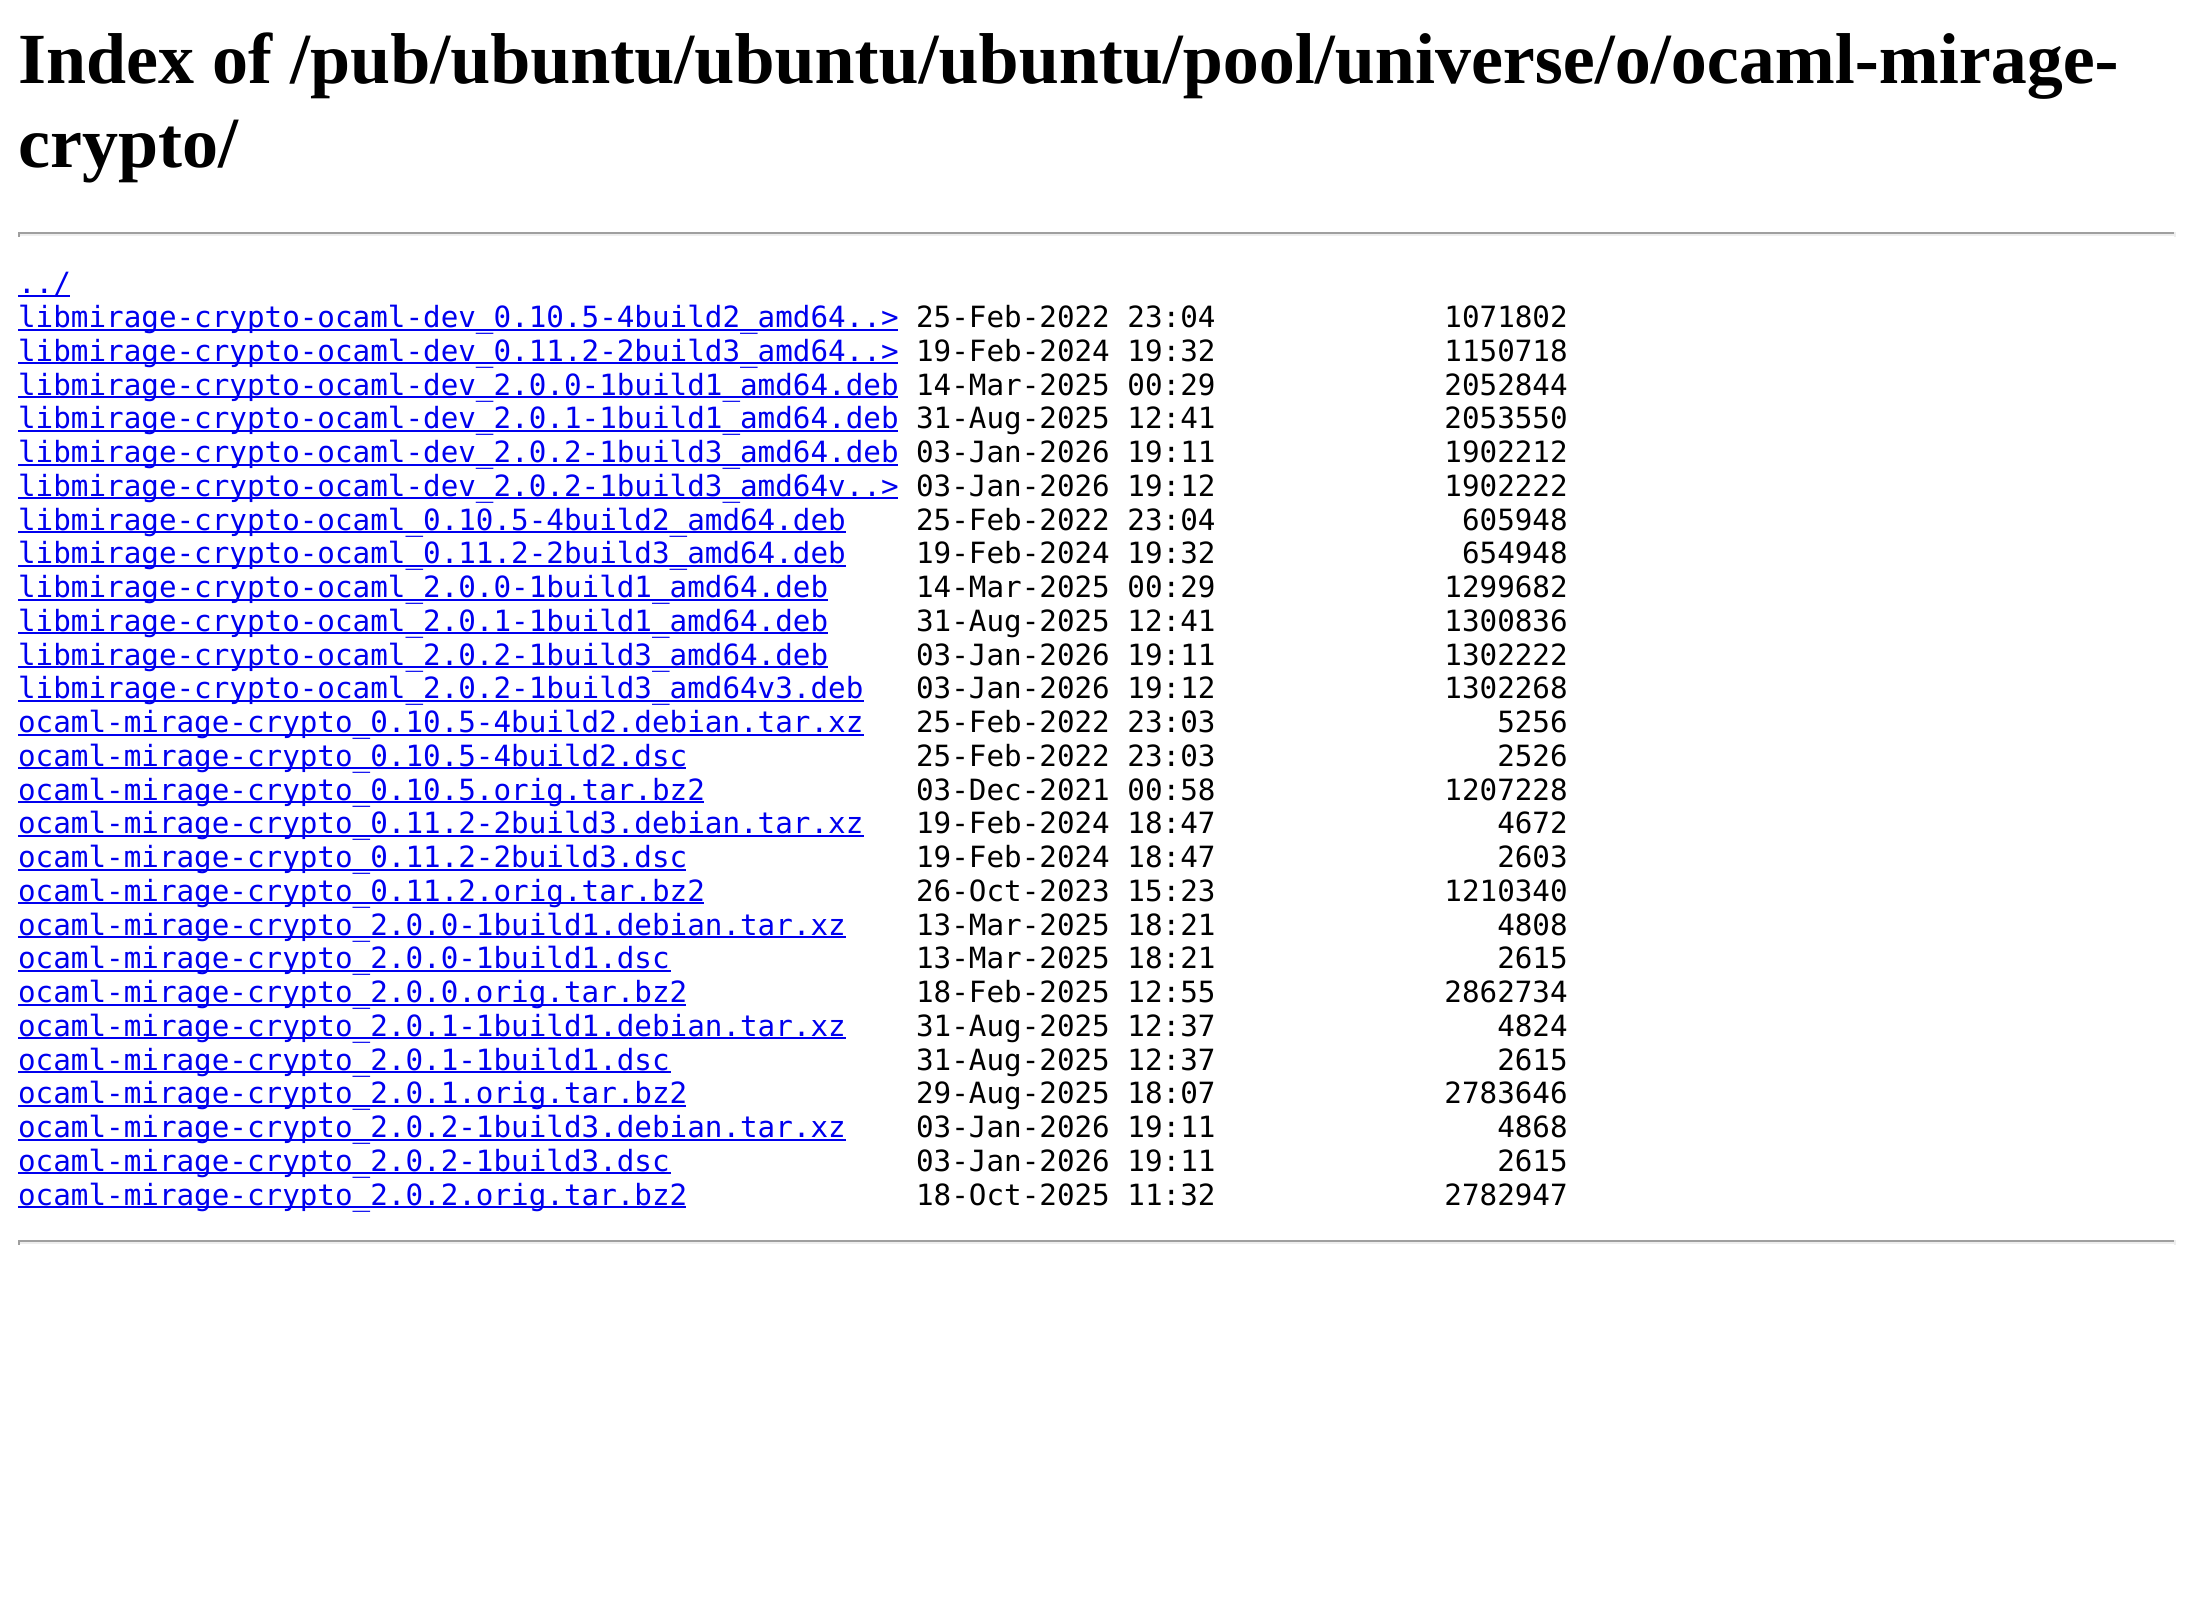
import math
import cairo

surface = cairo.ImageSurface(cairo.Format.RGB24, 2193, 1600)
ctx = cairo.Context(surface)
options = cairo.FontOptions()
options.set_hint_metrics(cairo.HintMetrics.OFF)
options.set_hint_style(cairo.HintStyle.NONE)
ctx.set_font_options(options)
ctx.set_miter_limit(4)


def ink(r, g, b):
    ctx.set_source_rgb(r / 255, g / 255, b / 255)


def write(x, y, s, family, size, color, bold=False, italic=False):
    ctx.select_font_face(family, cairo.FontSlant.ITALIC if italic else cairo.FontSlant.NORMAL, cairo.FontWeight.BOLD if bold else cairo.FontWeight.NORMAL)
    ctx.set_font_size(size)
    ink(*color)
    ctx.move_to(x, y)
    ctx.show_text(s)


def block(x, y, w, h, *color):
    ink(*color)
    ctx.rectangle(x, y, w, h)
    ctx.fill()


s1 = dict(family="Liberation Serif", size=72, color=(0, 0, 0), bold=True)
s2 = dict(family="DejaVu Sans Mono", size=29.25, color=(0, 0, 238))
s3 = dict(family="DejaVu Sans Mono", size=29.25, color=(0, 0, 0))

ink(255, 255, 255)
ctx.paint()
write(18, 83, "Index of /pub/ubuntu/ubuntu/ubuntu/pool/universe/o/ocaml-mirage-", **s1)
write(18, 167, "crypto/", **s1)
block(18, 232, 2158, 2, 159, 159, 159)
block(2174, 232, 2, 5, 238, 238, 238)
block(18, 234, 2158, 2, 238, 238, 238)
block(18, 232, 2, 5, 159, 159, 159)
block(18, 295, 52, 2, 0, 0, 238)
write(18, 293, "../", **s2)
block(18, 329, 880, 2, 0, 0, 238)
write(18, 327, "libmirage-crypto-ocaml-dev_0.10.5-4build2_amd64..>", **s2)
write(916, 327, "25-Feb-2022 23:04             1071802", **s3)
block(18, 362, 880, 2, 0, 0, 238)
write(18, 361, "libmirage-crypto-ocaml-dev_0.11.2-2build3_amd64..>", **s2)
write(916, 361, "19-Feb-2024 19:32             1150718", **s3)
block(18, 396, 880, 2, 0, 0, 238)
write(18, 395, "libmirage-crypto-ocaml-dev_2.0.0-1build1_amd64.deb", **s2)
write(916, 395, "14-Mar-2025 00:29             2052844", **s3)
block(18, 430, 880, 2, 0, 0, 238)
write(18, 428, "libmirage-crypto-ocaml-dev_2.0.1-1build1_amd64.deb", **s2)
write(916, 428, "31-Aug-2025 12:41             2053550", **s3)
block(18, 464, 880, 2, 0, 0, 238)
write(18, 462, "libmirage-crypto-ocaml-dev_2.0.2-1build3_amd64.deb", **s2)
write(916, 462, "03-Jan-2026 19:11             1902212", **s3)
block(18, 497, 880, 2, 0, 0, 238)
write(18, 496, "libmirage-crypto-ocaml-dev_2.0.2-1build3_amd64v..>", **s2)
write(916, 496, "03-Jan-2026 19:12             1902222", **s3)
block(18, 531, 828, 2, 0, 0, 238)
write(18, 530, "libmirage-crypto-ocaml_0.10.5-4build2_amd64.deb", **s2)
write(916, 530, "25-Feb-2022 23:04              605948", **s3)
block(18, 565, 828, 2, 0, 0, 238)
write(18, 563, "libmirage-crypto-ocaml_0.11.2-2build3_amd64.deb", **s2)
write(916, 563, "19-Feb-2024 19:32              654948", **s3)
block(18, 599, 810, 2, 0, 0, 238)
write(18, 597, "libmirage-crypto-ocaml_2.0.0-1build1_amd64.deb", **s2)
write(916, 597, "14-Mar-2025 00:29             1299682", **s3)
block(18, 632, 810, 2, 0, 0, 238)
write(18, 631, "libmirage-crypto-ocaml_2.0.1-1build1_amd64.deb", **s2)
write(916, 631, "31-Aug-2025 12:41             1300836", **s3)
block(18, 666, 810, 2, 0, 0, 238)
write(18, 665, "libmirage-crypto-ocaml_2.0.2-1build3_amd64.deb", **s2)
write(916, 665, "03-Jan-2026 19:11             1302222", **s3)
block(18, 700, 846, 2, 0, 0, 238)
write(18, 698, "libmirage-crypto-ocaml_2.0.2-1build3_amd64v3.deb", **s2)
write(916, 698, "03-Jan-2026 19:12             1302268", **s3)
block(18, 734, 846, 2, 0, 0, 238)
write(18, 732, "ocaml-mirage-crypto_0.10.5-4build2.debian.tar.xz", **s2)
write(916, 732, "25-Feb-2022 23:03                5256", **s3)
block(18, 767, 668, 2, 0, 0, 238)
write(18, 766, "ocaml-mirage-crypto_0.10.5-4build2.dsc", **s2)
write(916, 766, "25-Feb-2022 23:03                2526", **s3)
block(18, 801, 686, 2, 0, 0, 238)
write(18, 800, "ocaml-mirage-crypto_0.10.5.orig.tar.bz2", **s2)
write(916, 800, "03-Dec-2021 00:58             1207228", **s3)
block(18, 835, 846, 2, 0, 0, 238)
write(18, 833, "ocaml-mirage-crypto_0.11.2-2build3.debian.tar.xz", **s2)
write(916, 833, "19-Feb-2024 18:47                4672", **s3)
block(18, 869, 668, 2, 0, 0, 238)
write(18, 867, "ocaml-mirage-crypto_0.11.2-2build3.dsc", **s2)
write(916, 867, "19-Feb-2024 18:47                2603", **s3)
block(18, 902, 686, 2, 0, 0, 238)
write(18, 901, "ocaml-mirage-crypto_0.11.2.orig.tar.bz2", **s2)
write(916, 901, "26-Oct-2023 15:23             1210340", **s3)
block(18, 936, 828, 2, 0, 0, 238)
write(18, 935, "ocaml-mirage-crypto_2.0.0-1build1.debian.tar.xz", **s2)
write(916, 935, "13-Mar-2025 18:21                4808", **s3)
block(18, 970, 653, 2, 0, 0, 238)
write(18, 968, "ocaml-mirage-crypto_2.0.0-1build1.dsc", **s2)
write(916, 968, "13-Mar-2025 18:21                2615", **s3)
block(18, 1004, 668, 2, 0, 0, 238)
write(18, 1002, "ocaml-mirage-crypto_2.0.0.orig.tar.bz2", **s2)
write(916, 1002, "18-Feb-2025 12:55             2862734", **s3)
block(18, 1037, 828, 2, 0, 0, 238)
write(18, 1036, "ocaml-mirage-crypto_2.0.1-1build1.debian.tar.xz", **s2)
write(916, 1036, "31-Aug-2025 12:37                4824", **s3)
block(18, 1071, 653, 2, 0, 0, 238)
write(18, 1070, "ocaml-mirage-crypto_2.0.1-1build1.dsc", **s2)
write(916, 1070, "31-Aug-2025 12:37                2615", **s3)
block(18, 1105, 668, 2, 0, 0, 238)
write(18, 1103, "ocaml-mirage-crypto_2.0.1.orig.tar.bz2", **s2)
write(916, 1103, "29-Aug-2025 18:07             2783646", **s3)
block(18, 1139, 828, 2, 0, 0, 238)
write(18, 1137, "ocaml-mirage-crypto_2.0.2-1build3.debian.tar.xz", **s2)
write(916, 1137, "03-Jan-2026 19:11                4868", **s3)
block(18, 1172, 653, 2, 0, 0, 238)
write(18, 1171, "ocaml-mirage-crypto_2.0.2-1build3.dsc", **s2)
write(916, 1171, "03-Jan-2026 19:11                2615", **s3)
block(18, 1206, 668, 2, 0, 0, 238)
write(18, 1205, "ocaml-mirage-crypto_2.0.2.orig.tar.bz2", **s2)
write(916, 1205, "18-Oct-2025 11:32             2782947", **s3)
block(18, 1240, 2158, 2, 159, 159, 159)
block(2174, 1240, 2, 5, 238, 238, 238)
block(18, 1242, 2158, 2, 238, 238, 238)
block(18, 1240, 2, 5, 159, 159, 159)
surface.write_to_png("screenshot.png")
